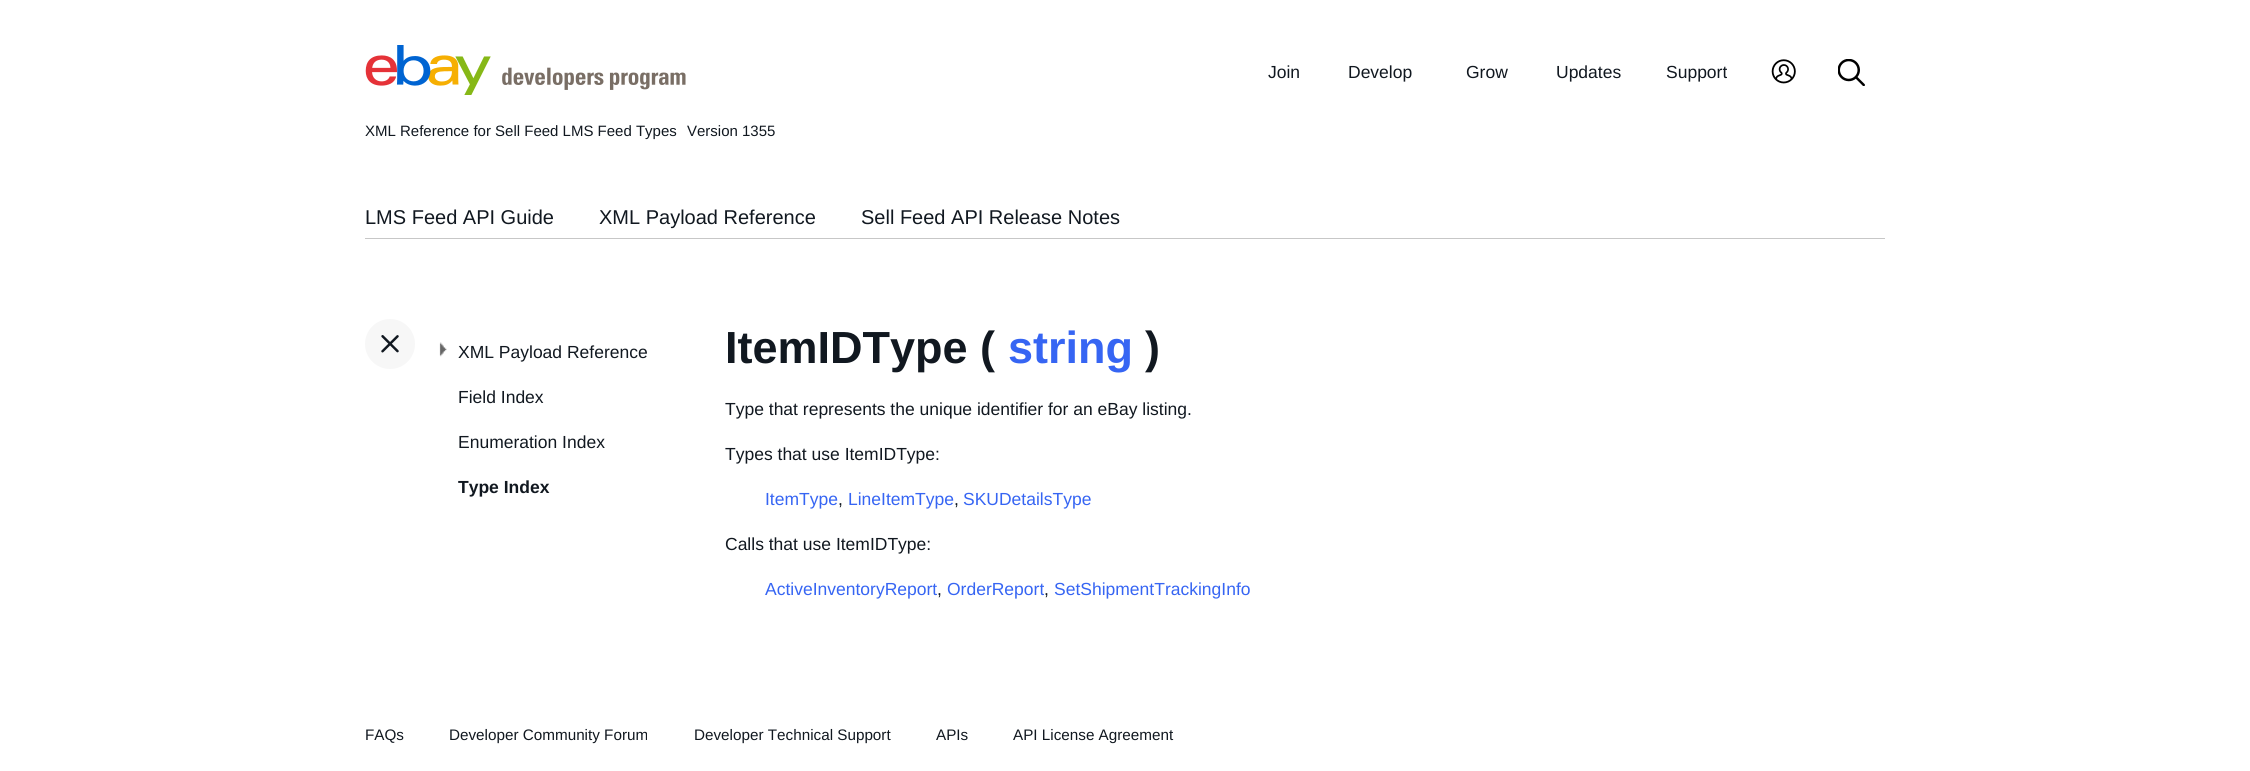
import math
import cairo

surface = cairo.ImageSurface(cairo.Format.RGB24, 2250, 771)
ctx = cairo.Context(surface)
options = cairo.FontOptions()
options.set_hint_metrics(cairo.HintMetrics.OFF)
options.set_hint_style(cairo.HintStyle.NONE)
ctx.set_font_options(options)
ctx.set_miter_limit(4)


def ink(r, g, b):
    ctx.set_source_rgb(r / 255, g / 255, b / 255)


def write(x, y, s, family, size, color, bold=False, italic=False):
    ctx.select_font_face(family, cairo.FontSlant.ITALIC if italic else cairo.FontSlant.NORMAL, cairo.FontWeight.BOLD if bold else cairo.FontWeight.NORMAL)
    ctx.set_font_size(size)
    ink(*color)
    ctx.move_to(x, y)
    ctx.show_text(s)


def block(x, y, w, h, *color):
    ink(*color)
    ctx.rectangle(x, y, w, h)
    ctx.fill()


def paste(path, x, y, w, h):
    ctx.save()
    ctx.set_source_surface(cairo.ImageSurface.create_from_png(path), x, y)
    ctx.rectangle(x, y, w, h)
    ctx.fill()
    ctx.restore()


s1 = dict(family="Liberation Sans", size=17.5, color=(17, 24, 32))
s2 = dict(family="Liberation Sans", size=15, color=(17, 24, 32))
s3 = dict(family="Liberation Sans", size=20, color=(17, 24, 32))
s4 = dict(family="Liberation Sans", size=17.5, color=(17, 24, 32), bold=True)
s5 = dict(family="Liberation Sans", size=45, color=(17, 24, 32), bold=True)
s6 = dict(family="Liberation Sans", size=45, color=(54, 101, 243), bold=True)
s7 = dict(family="Liberation Sans", size=17.5, color=(54, 101, 243))
s8 = dict(family="Liberation Sans", size=15.25, color=(17, 24, 32))

ink(255, 255, 255)
ctx.paint()
paste("pic1.png", 365, 45, 321, 50)
write(1268, 78, "Join", **s1)
write(1348, 78, "Develop", **s1)
write(1466, 78, "Grow", **s1)
write(1556, 78, "Updates", **s1)
write(1666, 78, "Support", **s1)
paste("pic2.png", 1771, 59, 25, 25)
paste("pic3.png", 1838, 59, 27, 27)
write(365, 136, "XML Reference for Sell Feed LMS Feed Types", **s2)
write(687, 136, "Version 1355", **s2)
block(365, 238, 1520, 1, 199, 199, 199)
write(365, 224, "LMS Feed API Guide", **s3)
write(599, 224, "XML Payload Reference", **s3)
write(861, 224, "Sell Feed API Release Notes", **s3)
ink(247, 247, 247)
ctx.new_path()
ctx.arc(390, 344, 25, 0, 2 * math.pi)
ctx.fill()
paste("pic4.png", 381, 335, 18, 18)
paste("pic5.png", 439, 342, 8, 15)
write(458, 358, "XML Payload Reference", **s1)
write(458, 403, "Field Index", **s1)
write(458, 448, "Enumeration Index", **s1)
write(458, 493, "Type Index", **s4)
write(725, 363, "ItemIDType (", **s5)
write(1008, 363, "string", **s6)
write(1145, 363, ")", **s5)
write(725, 415, "Type that represents the unique identifier for an eBay listing.", **s1)
write(725, 460, "Types that use ItemIDType:", **s1)
write(765, 505, "ItemType", **s7)
write(838, 505, ",", **s1)
write(848, 505, "LineItemType", **s7)
write(954, 505, ",", **s1)
write(963, 505, "SKUDetailsType", **s7)
write(725, 550, "Calls that use ItemIDType:", **s1)
write(765, 595, "ActiveInventoryReport", **s7)
write(937, 595, ",", **s1)
write(947, 595, "OrderReport", **s7)
write(1044, 595, ",", **s1)
write(1054, 595, "SetShipmentTrackingInfo", **s7)
write(365, 740, "FAQs", **s8)
write(449, 740, "Developer Community Forum", **s8)
write(694, 740, "Developer Technical Support", **s8)
write(936, 740, "APIs", **s8)
write(1013, 740, "API License Agreement", **s8)
surface.write_to_png("screenshot.png")
